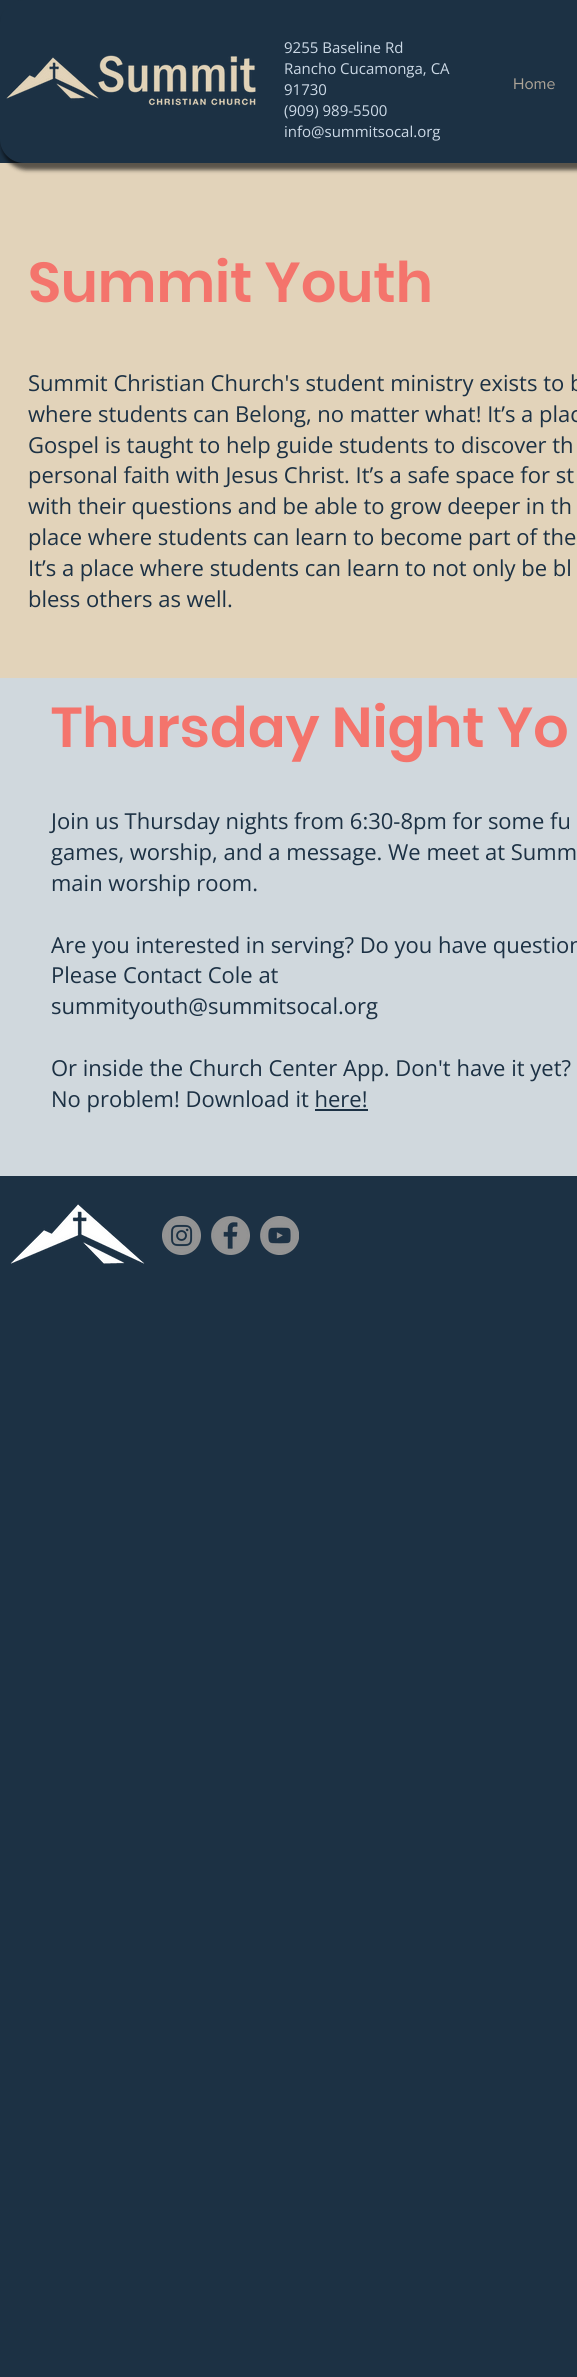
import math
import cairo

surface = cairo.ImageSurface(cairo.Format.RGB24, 577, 2377)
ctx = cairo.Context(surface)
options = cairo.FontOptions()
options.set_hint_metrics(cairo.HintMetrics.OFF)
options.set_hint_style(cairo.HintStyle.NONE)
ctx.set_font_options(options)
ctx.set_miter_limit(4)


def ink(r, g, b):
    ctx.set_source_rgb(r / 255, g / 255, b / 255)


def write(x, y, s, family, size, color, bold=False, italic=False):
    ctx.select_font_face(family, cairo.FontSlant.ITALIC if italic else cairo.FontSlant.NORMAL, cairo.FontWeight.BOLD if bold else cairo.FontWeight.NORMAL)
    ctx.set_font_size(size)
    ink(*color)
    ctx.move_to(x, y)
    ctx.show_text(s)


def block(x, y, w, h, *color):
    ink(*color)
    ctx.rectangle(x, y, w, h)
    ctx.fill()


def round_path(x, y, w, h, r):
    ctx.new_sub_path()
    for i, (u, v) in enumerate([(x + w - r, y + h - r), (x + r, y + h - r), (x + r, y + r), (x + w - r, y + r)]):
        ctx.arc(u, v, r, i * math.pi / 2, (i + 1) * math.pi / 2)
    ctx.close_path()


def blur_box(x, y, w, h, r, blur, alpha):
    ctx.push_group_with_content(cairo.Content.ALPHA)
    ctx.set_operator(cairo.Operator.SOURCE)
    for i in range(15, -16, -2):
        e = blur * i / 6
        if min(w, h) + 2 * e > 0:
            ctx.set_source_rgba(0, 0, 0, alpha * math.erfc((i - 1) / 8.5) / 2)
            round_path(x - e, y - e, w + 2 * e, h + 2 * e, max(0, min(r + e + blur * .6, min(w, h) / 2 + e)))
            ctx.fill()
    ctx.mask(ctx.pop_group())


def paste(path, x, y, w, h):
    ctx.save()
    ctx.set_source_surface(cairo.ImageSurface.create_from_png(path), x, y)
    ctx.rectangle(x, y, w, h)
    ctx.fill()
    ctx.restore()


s1 = dict(family="Open Sans", size=15, color=(204, 217, 230))
s2 = dict(family="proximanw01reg", size=16, color=(173, 164, 151))
s3 = dict(family="Poppins SemiBold", size=56, color=(244, 116, 108))
s4 = dict(family="Open Sans", size=22, color=(28, 49, 68))

ink(28, 49, 68)
ctx.paint()
block(0, 163, 577, 515, 226, 211, 186)
ink(0, 0, 0)
blur_box(1, 3, 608, 167, 26, 2, 0.6)
ink(28, 49, 68)
round_path(0, 0, 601, 163, 24)
ctx.fill()
paste("pic1.png", 6, 55, 250, 51)
write(284, 53, "9255 Baseline Rd", **s1)
write(284, 74, "Rancho Cucamonga, CA", **s1)
write(284, 95, "91730", **s1)
write(284, 116, "(909) 989-5500", **s1)
write(284, 137, "info@summitsocal.org", **s1)
write(513, 89, "Home", **s2)
write(28, 302, "Summit Youth", **s3)
write(28, 391, "Summit Christian Church's student ministry exists to b", **s4)
write(28, 422, "where students can Belong, no matter what! It’s a plac", **s4)
write(28, 453, "Gospel is taught to help guide students to discover th", **s4)
write(28, 483, "personal faith with Jesus Christ. It’s a safe space for st", **s4)
write(28, 514, "with their questions and be able to grow deeper in th", **s4)
write(28, 545, "place where students can learn to become part of the", **s4)
write(28, 576, "It’s a place where students can learn to not only be bl", **s4)
write(28, 607, "bless others as well.", **s4)
block(0, 678, 577, 498, 208, 216, 221)
write(51, 747, "Thursday Night Yo", **s3)
write(51, 829, "Join us Thursday nights from 6:30-8pm for some fu", **s4)
write(51, 860, "games, worship, and a message. We meet at Summ", **s4)
write(51, 891, "main worship room.", **s4)
write(51, 953, "Are you interested in serving? Do you have question", **s4)
write(51, 983, "Please Contact Cole at", **s4)
write(51, 1014, "summityouth@summitsocal.org", **s4)
write(51, 1076, "Or inside the Church Center App. Don't have it yet?", **s4)
write(51, 1107, "No problem! Download it here!", **s4)
block(315, 1109, 53, 2, 28, 49, 68)
paste("pic2.png", 10, 1204, 135, 60)
paste("pic3.png", 162, 1216, 39, 39)
paste("pic4.png", 211, 1216, 39, 39)
paste("pic5.png", 260, 1216, 39, 39)
surface.write_to_png("screenshot.png")
